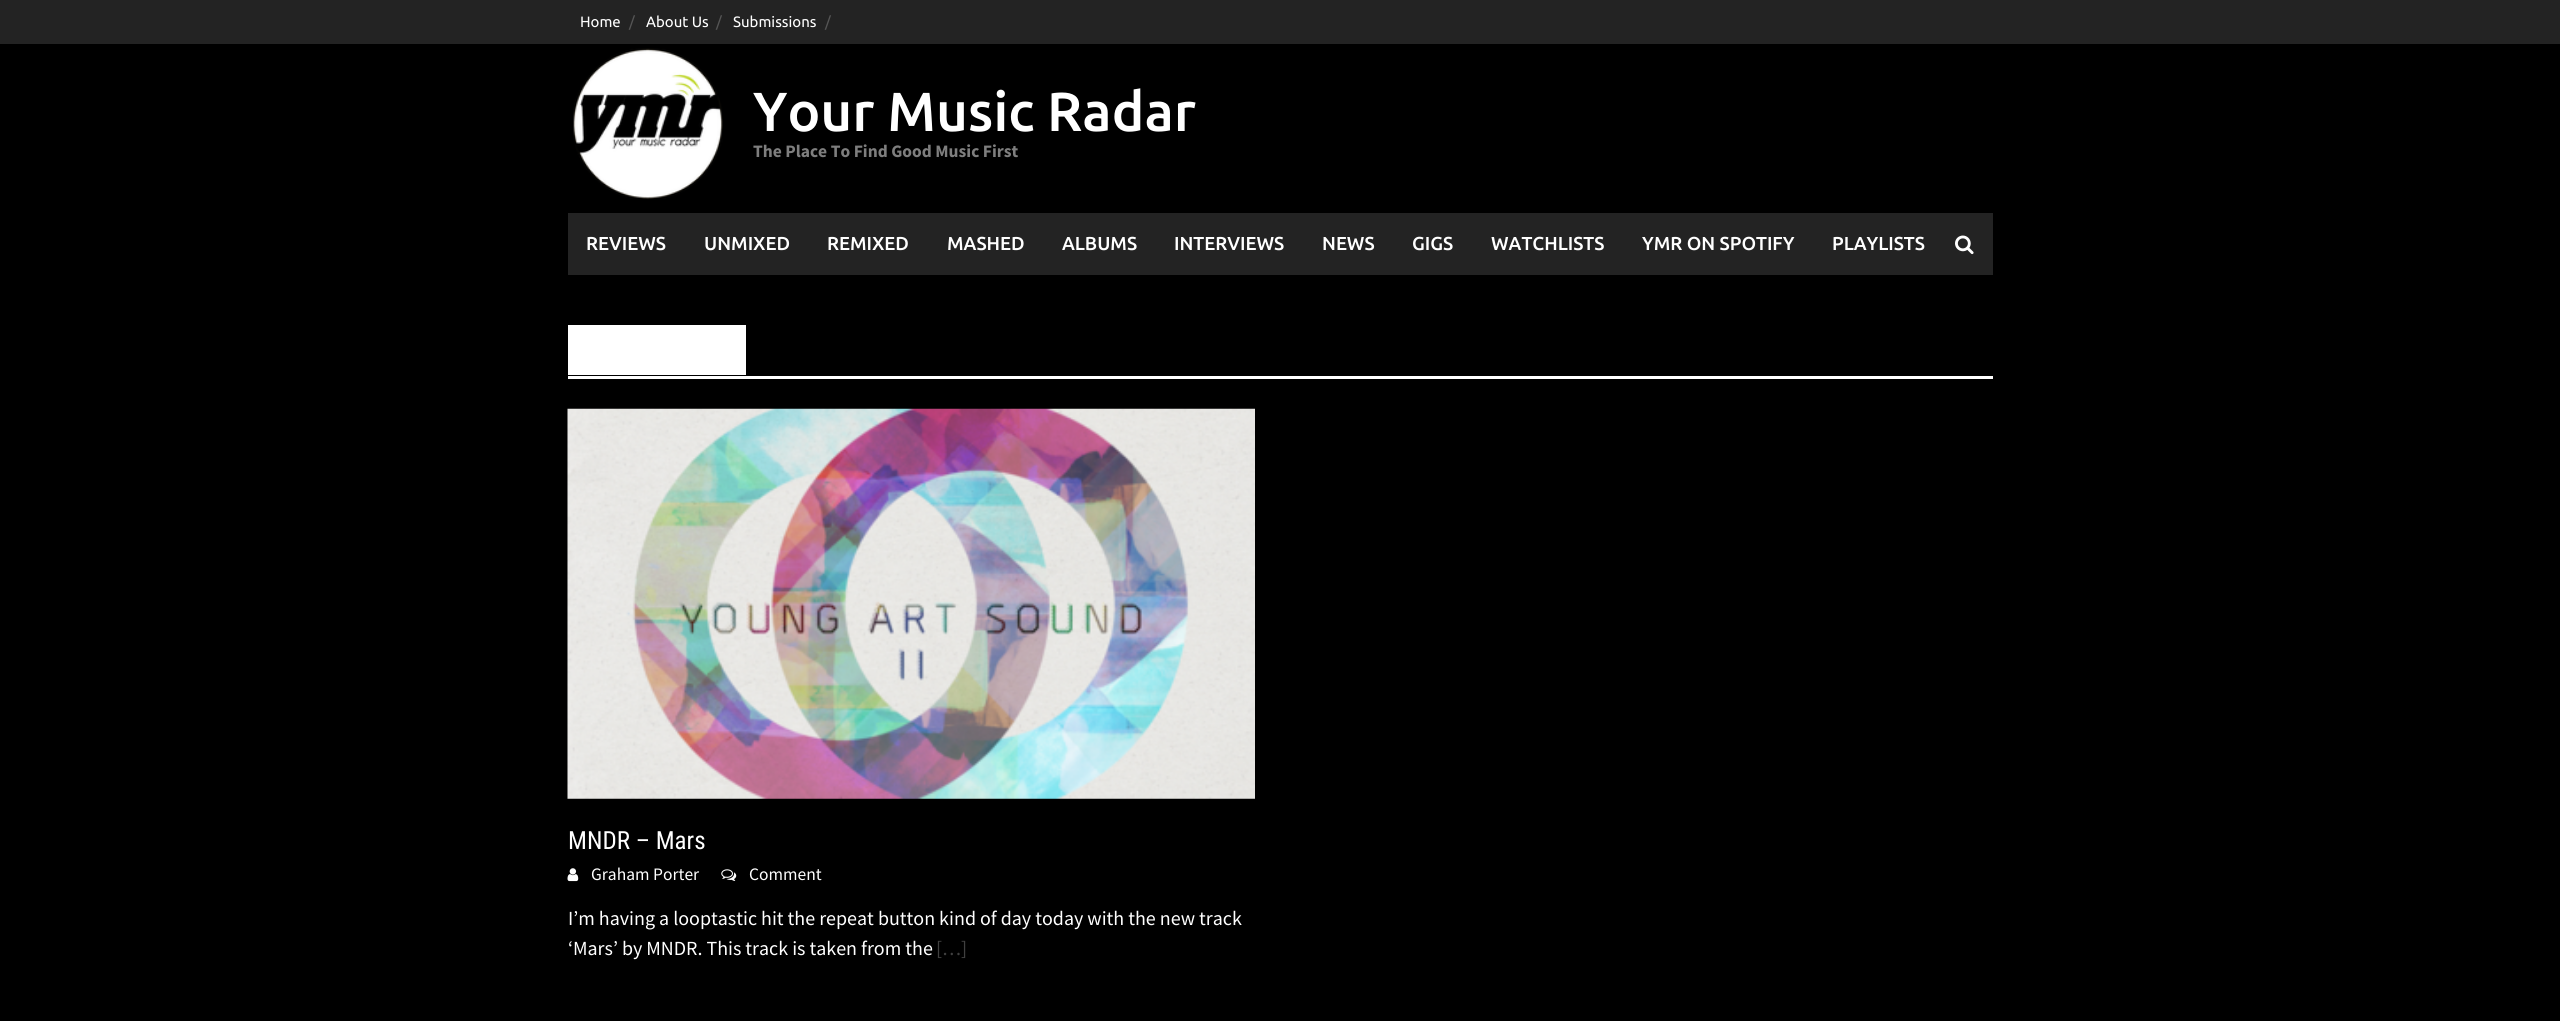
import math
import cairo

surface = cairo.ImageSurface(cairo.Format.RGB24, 2560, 1021)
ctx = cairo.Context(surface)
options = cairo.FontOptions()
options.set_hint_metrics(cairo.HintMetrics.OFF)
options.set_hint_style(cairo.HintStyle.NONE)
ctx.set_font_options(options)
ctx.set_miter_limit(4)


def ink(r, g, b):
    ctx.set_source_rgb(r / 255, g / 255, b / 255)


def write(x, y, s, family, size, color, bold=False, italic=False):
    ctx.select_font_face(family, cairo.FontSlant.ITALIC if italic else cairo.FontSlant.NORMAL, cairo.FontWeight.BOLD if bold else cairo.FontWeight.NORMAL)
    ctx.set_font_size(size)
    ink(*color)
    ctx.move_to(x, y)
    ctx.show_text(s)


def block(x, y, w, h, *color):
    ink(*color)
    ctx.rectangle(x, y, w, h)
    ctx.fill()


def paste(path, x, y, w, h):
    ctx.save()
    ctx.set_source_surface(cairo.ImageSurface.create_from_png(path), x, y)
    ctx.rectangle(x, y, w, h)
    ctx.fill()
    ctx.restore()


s1 = dict(family="Ubuntu", size=15, color=(255, 255, 255))
s2 = dict(family="Ubuntu", size=15, color=(85, 85, 85))
s3 = dict(family="Ubuntu Medium", size=55, color=(255, 255, 255))
s4 = dict(family="Source Sans Pro", size=17.5, color=(126, 126, 126), bold=True)
s5 = dict(family="Ubuntu Medium", size=18.75, color=(255, 255, 255))
s6 = dict(family="Roboto Condensed", size=25, color=(255, 255, 255))
s7 = dict(family="Source Sans Pro", size=17.5, color=(255, 255, 255))
s8 = dict(family="Source Sans Pro", size=20, color=(255, 255, 255))
s9 = dict(family="Source Sans Pro", size=20, color=(64, 64, 64))

ink(0, 0, 0)
ctx.paint()
block(0, 0, 2560, 44, 35, 35, 35)
write(580, 27, "Home", **s1)
write(629, 27, "/", **s2)
write(646, 27, "About Us", **s1)
write(716, 27, "/", **s2)
write(733, 27, "Submissions", **s1)
write(825, 27, "/", **s2)
paste("pic1.png", 573, 48, 150, 151)
write(753, 131, "Your Music Radar", **s3)
write(753, 157, "The Place To Find Good Music First", **s4)
block(568, 213, 1425, 62, 35, 35, 35)
write(586, 250, "REVIEWS", **s5)
write(704, 250, "UNMIXED", **s5)
write(827, 250, "REMIXED", **s5)
write(947, 250, "MASHED", **s5)
write(1062, 250, "ALBUMS", **s5)
write(1174, 250, "INTERVIEWS", **s5)
write(1322, 250, "NEWS", **s5)
write(1412, 250, "GIGS", **s5)
write(1491, 250, "WATCHLISTS", **s5)
write(1642, 250, "YMR ON SPOTIFY", **s5)
write(1832, 250, "PLAYLISTS", **s5)
paste("pic2.png", 1955, 235, 19, 20)
block(568, 376, 1425, 3, 255, 255, 255)
block(568, 325, 178, 50, 255, 255, 255)
paste("pic3.png", 567, 408, 688, 391)
write(568, 849, "MNDR – Mars", **s6)
paste("pic4.png", 567, 868, 12, 14)
write(591, 880, "Graham Porter", **s7)
paste("pic5.png", 721, 869, 16, 12)
write(749, 880, "Comment", **s7)
write(568, 925, "I’m having a looptastic hit the repeat button kind of day today with the new track", **s8)
write(568, 955, "‘Mars’ by MNDR. This track is taken from the", **s8)
write(936, 955, "[…]", **s9)
surface.write_to_png("screenshot.png")
